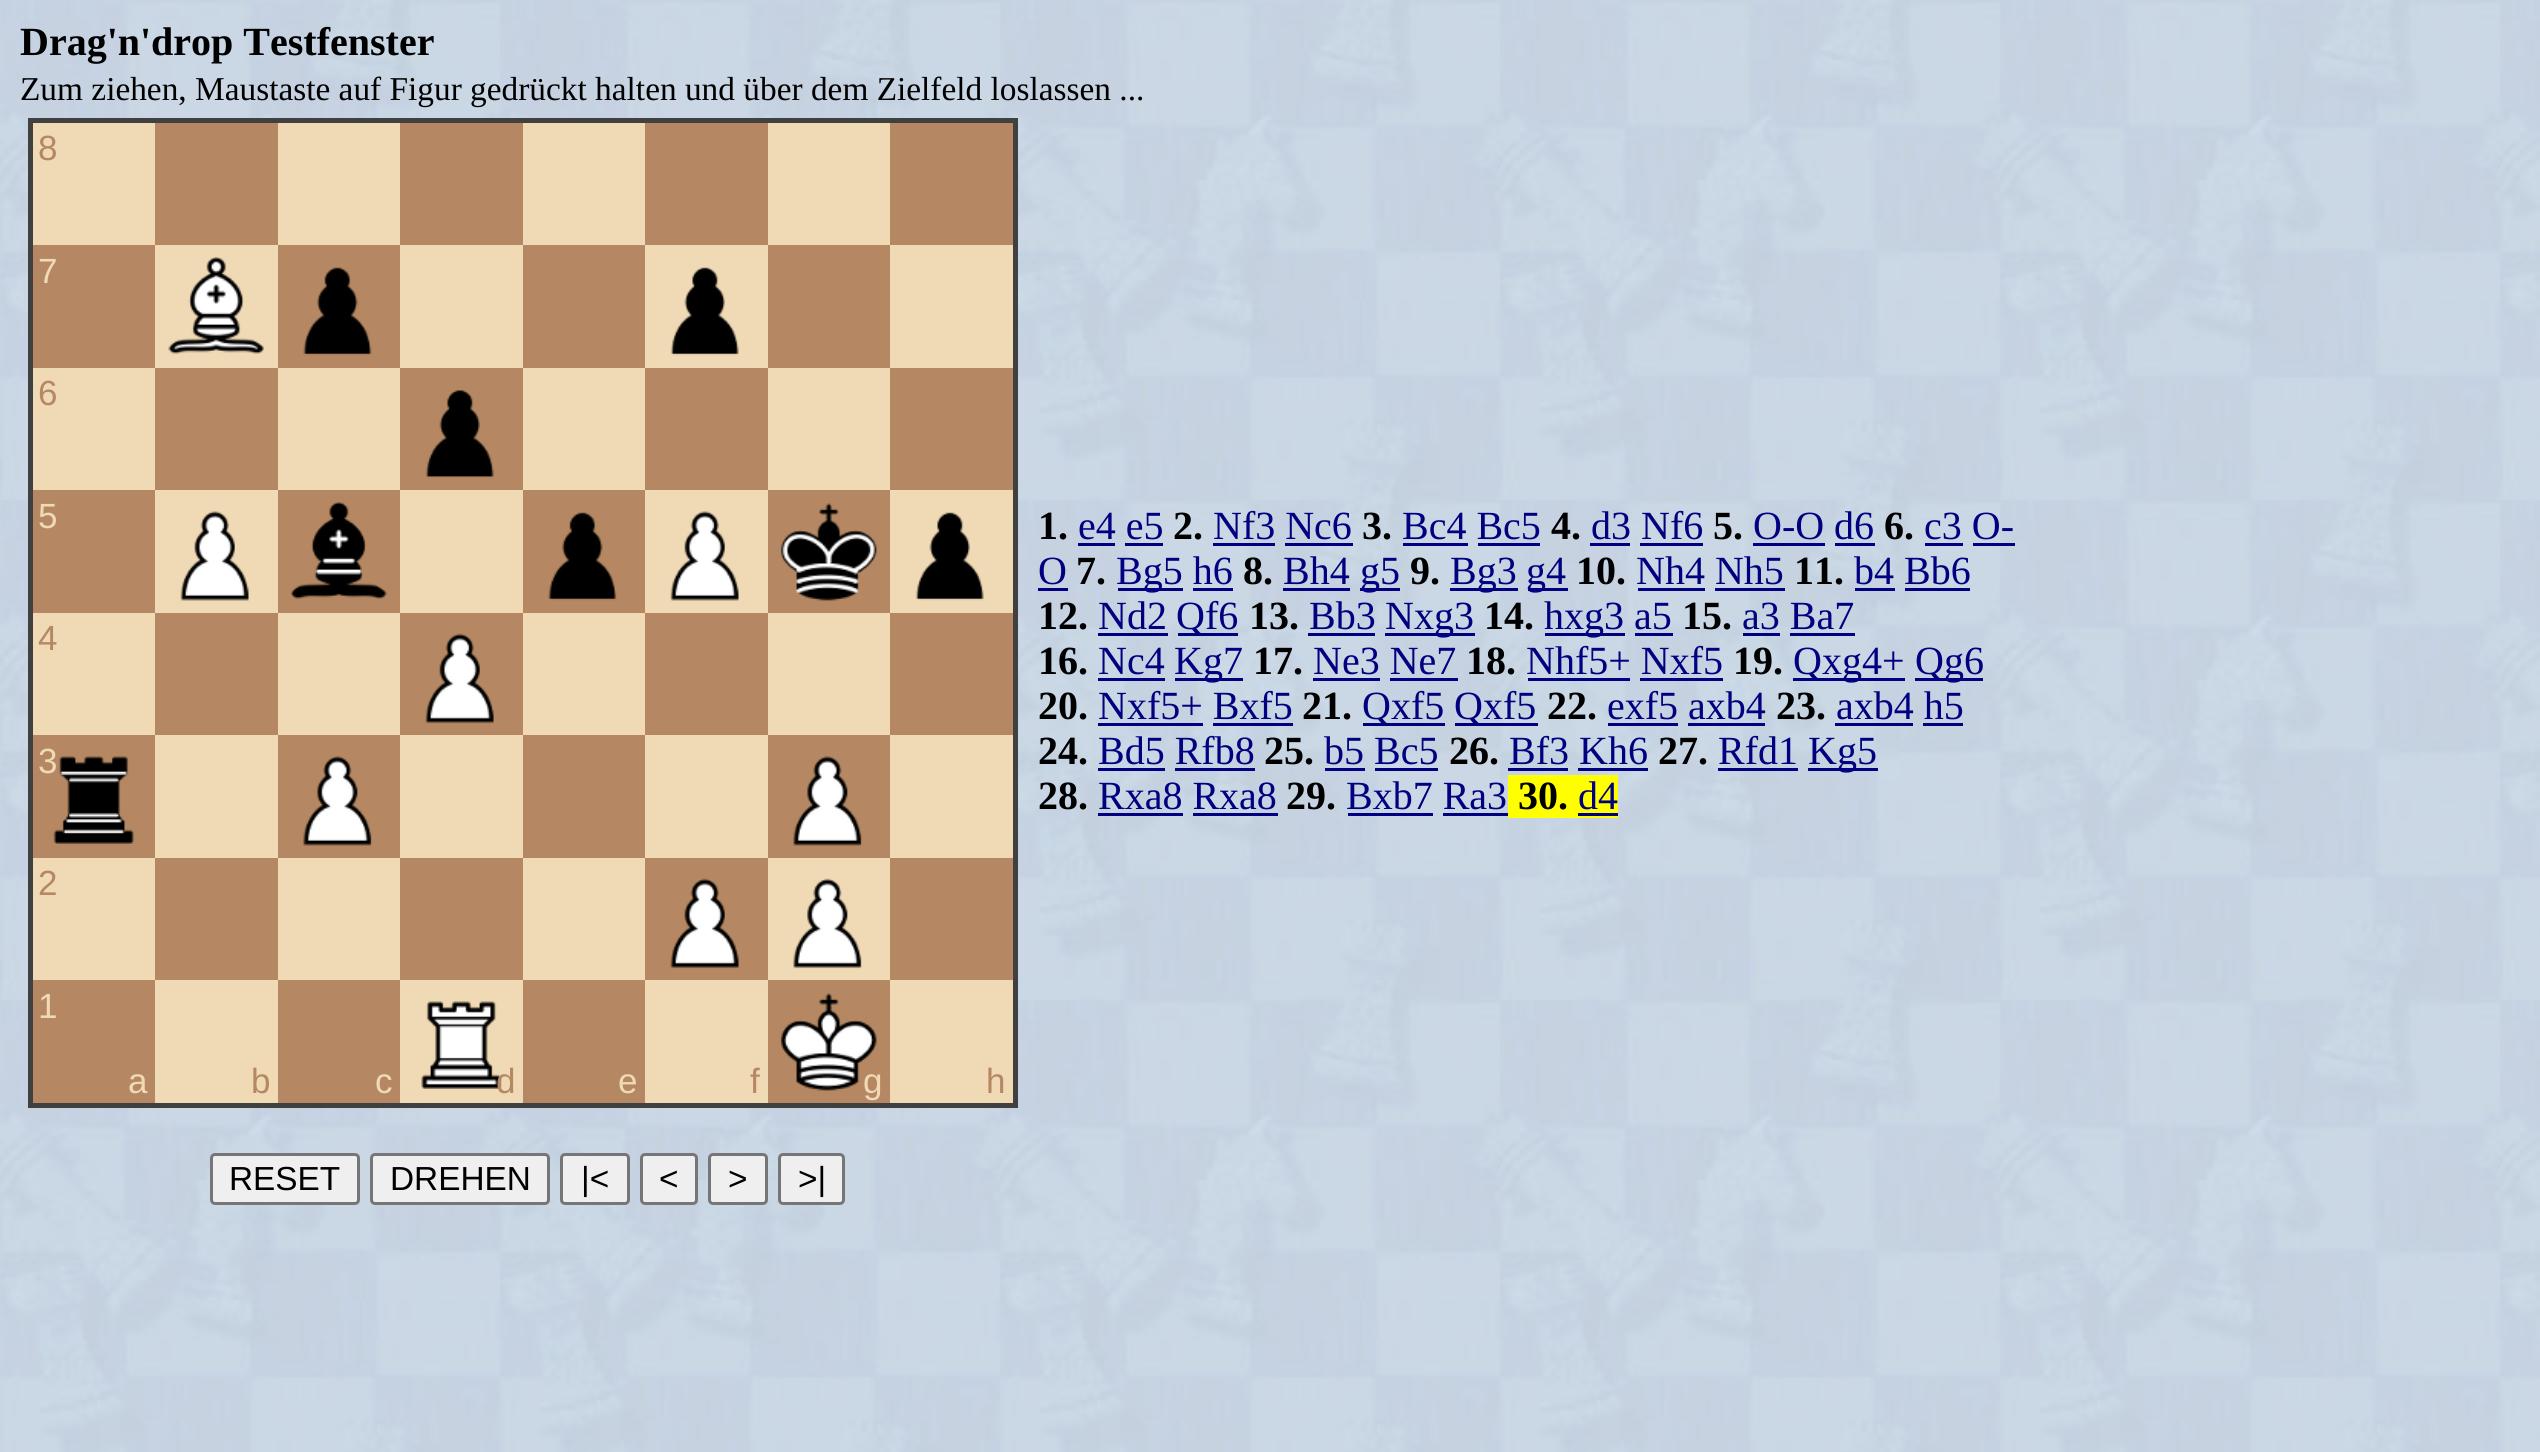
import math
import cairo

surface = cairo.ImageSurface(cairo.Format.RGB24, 2540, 1452)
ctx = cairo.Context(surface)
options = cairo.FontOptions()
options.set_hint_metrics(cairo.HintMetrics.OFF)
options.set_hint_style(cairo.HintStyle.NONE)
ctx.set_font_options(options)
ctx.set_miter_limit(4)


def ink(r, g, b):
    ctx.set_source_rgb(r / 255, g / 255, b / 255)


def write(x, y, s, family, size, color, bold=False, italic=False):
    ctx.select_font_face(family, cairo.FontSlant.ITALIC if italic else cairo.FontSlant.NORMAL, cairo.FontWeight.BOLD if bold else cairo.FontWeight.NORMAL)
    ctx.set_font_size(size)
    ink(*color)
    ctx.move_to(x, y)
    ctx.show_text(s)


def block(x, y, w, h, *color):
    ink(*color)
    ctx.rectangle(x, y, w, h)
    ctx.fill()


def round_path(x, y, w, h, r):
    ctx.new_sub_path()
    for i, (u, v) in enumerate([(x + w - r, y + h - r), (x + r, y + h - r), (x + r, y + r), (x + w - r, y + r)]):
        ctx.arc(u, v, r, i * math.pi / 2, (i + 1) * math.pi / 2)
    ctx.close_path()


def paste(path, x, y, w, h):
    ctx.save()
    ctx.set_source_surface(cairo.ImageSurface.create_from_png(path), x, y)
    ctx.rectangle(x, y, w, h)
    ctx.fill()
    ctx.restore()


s1 = dict(family="Liberation Serif", size=40, color=(0, 0, 0), bold=True)
s2 = dict(family="Liberation Serif", size=33.35, color=(0, 0, 0))
s3 = dict(family="Liberation Sans", size=35, color=(181, 136, 99))
s4 = dict(family="Liberation Sans", size=35, color=(240, 217, 181))
s5 = dict(family="Liberation Sans", size=33.35, color=(0, 0, 0))
s6 = dict(family="Liberation Serif", size=40, color=(0, 0, 128))

ink(255, 255, 255)
ctx.paint()
paste("pic1.png", 0, 0, 2540, 1452)
write(20, 55, "Drag'n'drop Testfenster", **s1)
write(20, 100, "Zum ziehen, Maustaste auf Figur gedrückt halten und über dem Zielfeld loslassen ...", **s2)
ctx.rectangle(30.5, 120.5, 985, 985)
ink(64, 64, 64)
ctx.set_line_width(5)
ctx.stroke()
block(33, 123, 122, 122, 240, 217, 181)
write(38, 160, "8", **s3)
block(155, 123, 123, 122, 181, 136, 99)
block(278, 123, 122, 122, 240, 217, 181)
block(400, 123, 123, 122, 181, 136, 99)
block(523, 123, 122, 122, 240, 217, 181)
block(645, 123, 123, 122, 181, 136, 99)
block(768, 123, 122, 122, 240, 217, 181)
block(890, 123, 123, 122, 181, 136, 99)
block(33, 245, 122, 123, 181, 136, 99)
write(38, 283, "7", **s4)
block(155, 245, 123, 123, 240, 217, 181)
paste("pic2.png", 168, 257, 96, 97)
block(278, 245, 122, 123, 181, 136, 99)
paste("pic3.png", 303, 267, 69, 89)
block(400, 245, 123, 123, 240, 217, 181)
block(523, 245, 122, 123, 181, 136, 99)
block(645, 245, 123, 123, 240, 217, 181)
paste("pic4.png", 670, 267, 69, 89)
block(768, 245, 122, 123, 181, 136, 99)
block(890, 245, 123, 123, 240, 217, 181)
block(33, 368, 122, 122, 240, 217, 181)
write(38, 405, "6", **s3)
block(155, 368, 123, 122, 181, 136, 99)
block(278, 368, 122, 122, 240, 217, 181)
block(400, 368, 123, 122, 181, 136, 99)
paste("pic5.png", 425, 390, 69, 88)
block(523, 368, 122, 122, 240, 217, 181)
block(645, 368, 123, 122, 181, 136, 99)
block(768, 368, 122, 122, 240, 217, 181)
block(890, 368, 123, 122, 181, 136, 99)
block(33, 490, 122, 123, 181, 136, 99)
write(38, 528, "5", **s4)
block(155, 490, 123, 123, 240, 217, 181)
paste("pic6.png", 180, 511, 69, 90)
block(278, 490, 122, 123, 181, 136, 99)
paste("pic7.png", 291, 502, 96, 97)
block(400, 490, 123, 123, 240, 217, 181)
block(523, 490, 122, 123, 181, 136, 99)
paste("pic8.png", 548, 512, 69, 89)
block(645, 490, 123, 123, 240, 217, 181)
paste("pic6.png", 670, 511, 69, 90)
block(768, 490, 122, 123, 181, 136, 99)
paste("pic9.png", 780, 503, 98, 98)
block(890, 490, 123, 123, 240, 217, 181)
paste("pic4.png", 915, 512, 69, 89)
block(33, 613, 122, 122, 240, 217, 181)
write(38, 650, "4", **s3)
block(155, 613, 123, 122, 181, 136, 99)
block(278, 613, 122, 122, 240, 217, 181)
block(400, 613, 123, 122, 181, 136, 99)
paste("pic10.png", 425, 633, 69, 91)
block(523, 613, 122, 122, 240, 217, 181)
block(645, 613, 123, 122, 181, 136, 99)
block(768, 613, 122, 122, 240, 217, 181)
block(890, 613, 123, 122, 181, 136, 99)
block(33, 735, 122, 123, 181, 136, 99)
paste("pic11.png", 53, 756, 81, 88)
write(38, 773, "3", **s4)
block(155, 735, 123, 123, 240, 217, 181)
block(278, 735, 122, 123, 181, 136, 99)
paste("pic12.png", 303, 756, 69, 90)
block(400, 735, 123, 123, 240, 217, 181)
block(523, 735, 122, 123, 181, 136, 99)
block(645, 735, 123, 123, 240, 217, 181)
block(768, 735, 122, 123, 181, 136, 99)
paste("pic13.png", 793, 756, 69, 90)
block(890, 735, 123, 123, 240, 217, 181)
block(33, 858, 122, 122, 240, 217, 181)
write(38, 895, "2", **s3)
block(155, 858, 123, 122, 181, 136, 99)
block(278, 858, 122, 122, 240, 217, 181)
block(400, 858, 123, 122, 181, 136, 99)
block(523, 858, 122, 122, 240, 217, 181)
block(645, 858, 123, 122, 181, 136, 99)
paste("pic14.png", 670, 878, 69, 91)
block(768, 858, 122, 122, 240, 217, 181)
paste("pic15.png", 793, 878, 69, 91)
block(890, 858, 123, 122, 181, 136, 99)
block(33, 980, 122, 123, 181, 136, 99)
write(38, 1018, "1", **s4)
write(128, 1093, "a", **s4)
block(155, 980, 123, 123, 240, 217, 181)
write(251, 1093, "b", **s3)
block(278, 980, 122, 123, 181, 136, 99)
write(375, 1093, "c", **s4)
block(400, 980, 123, 123, 240, 217, 181)
paste("pic16.png", 421, 1001, 81, 88)
write(496, 1093, "d", **s3)
block(523, 980, 122, 123, 181, 136, 99)
write(618, 1093, "e", **s4)
block(645, 980, 123, 123, 240, 217, 181)
write(750, 1093, "f", **s3)
block(768, 980, 122, 123, 181, 136, 99)
paste("pic17.png", 780, 993, 98, 98)
write(863, 1093, "g", **s4)
block(890, 980, 123, 123, 240, 217, 181)
write(986, 1093, "h", **s3)
ink(239, 239, 239)
round_path(211.5, 1154.5, 147, 49, 3.5)
ctx.fill_preserve()
ink(118, 118, 118)
ctx.set_line_width(3)
ctx.stroke()
write(229, 1190, "RESET", **s5)
ink(239, 239, 239)
round_path(371.5, 1154.5, 177, 49, 3.5)
ctx.fill_preserve()
ink(118, 118, 118)
ctx.stroke()
write(390, 1190, "DREHEN", **s5)
ink(239, 239, 239)
round_path(561.5, 1154.5, 67, 49, 3.5)
ctx.fill_preserve()
ink(118, 118, 118)
ctx.stroke()
write(581, 1190, "|<", **s5)
ink(239, 239, 239)
round_path(641.5, 1154.5, 55, 49, 3.5)
ctx.fill_preserve()
ink(118, 118, 118)
ctx.stroke()
write(659, 1190, "<", **s5)
ink(239, 239, 239)
round_path(709.5, 1154.5, 57, 49, 3.5)
ctx.fill_preserve()
ink(118, 118, 118)
ctx.stroke()
write(728, 1190, ">", **s5)
ink(239, 239, 239)
round_path(779.5, 1154.5, 64, 49, 3.5)
ctx.fill_preserve()
ink(118, 118, 118)
ctx.stroke()
write(798, 1190, ">|", **s5)
write(1038, 539, "1.", **s1)
write(1078, 539, "e4 e5", **s6)
block(1078, 543, 37, 3, 0, 0, 128)
write(1173, 539, "2.", **s1)
write(1213, 539, "Nf3 Nc6", **s6)
block(1213, 543, 62, 3, 0, 0, 128)
write(1362, 539, "3.", **s1)
write(1402, 539, "Bc4 Bc5", **s6)
block(1403, 543, 65, 3, 0, 0, 128)
write(1551, 539, "4.", **s1)
write(1591, 539, "d3 Nf6", **s6)
block(1590, 543, 40, 3, 0, 0, 128)
write(1713, 539, "5.", **s1)
write(1753, 539, "O-O d6", **s6)
block(1753, 543, 72, 3, 0, 0, 128)
write(1884, 539, "6.", **s1)
write(1924, 539, "c3 O-", **s6)
block(1925, 543, 38, 3, 0, 0, 128)
block(1125, 543, 38, 3, 0, 0, 128)
block(1285, 543, 68, 3, 0, 0, 128)
block(1478, 543, 62, 3, 0, 0, 128)
block(1640, 543, 63, 3, 0, 0, 128)
block(1835, 543, 40, 3, 0, 0, 128)
write(1038, 584, "O", **s6)
block(1973, 543, 42, 3, 0, 0, 128)
block(1038, 588, 30, 3, 0, 0, 128)
write(1076, 584, "7.", **s1)
block(1118, 588, 65, 3, 0, 0, 128)
write(1116, 584, "Bg5 h6", **s6)
write(1243, 584, "8.", **s1)
write(1283, 584, "Bh4", **s6)
block(1283, 588, 67, 3, 0, 0, 128)
block(1360, 588, 40, 3, 0, 0, 128)
write(1360, 584, "g5", **s6)
write(1410, 584, "9.", **s1)
block(1450, 588, 68, 3, 0, 0, 128)
write(1450, 584, "Bg3", **s6)
block(1528, 588, 40, 3, 0, 0, 128)
write(1526, 584, "g4", **s6)
write(1576, 584, "10.", **s1)
write(1636, 584, "Nh4 Nh5", **s6)
block(1638, 588, 67, 3, 0, 0, 128)
write(1794, 584, "11.", **s1)
write(1854, 584, "b4 Bb6", **s6)
block(1855, 588, 40, 3, 0, 0, 128)
block(1193, 588, 40, 3, 0, 0, 128)
block(1715, 588, 70, 3, 0, 0, 128)
block(1905, 588, 65, 3, 0, 0, 128)
write(1038, 629, "12.", **s1)
write(1098, 629, "Nd2", **s6)
block(1098, 633, 70, 3, 0, 0, 128)
block(1178, 633, 60, 3, 0, 0, 128)
write(1176, 629, "Qf6", **s6)
write(1249, 629, "13.", **s1)
write(1309, 629, "Bb3", **s6)
block(1308, 633, 67, 3, 0, 0, 128)
block(1385, 633, 90, 3, 0, 0, 128)
write(1385, 629, "Nxg3", **s6)
write(1484, 629, "14.", **s1)
block(1545, 633, 80, 3, 0, 0, 128)
write(1544, 629, "hxg3 a5", **s6)
write(1682, 629, "15.", **s1)
write(1742, 629, "a3 Ba7", **s6)
block(1743, 633, 37, 3, 0, 0, 128)
block(1635, 633, 38, 3, 0, 0, 128)
block(1790, 633, 65, 3, 0, 0, 128)
write(1038, 674, "16.", **s1)
write(1098, 674, "Nc4", **s6)
block(1098, 678, 67, 3, 0, 0, 128)
block(1175, 678, 68, 3, 0, 0, 128)
write(1174, 674, "Kg7", **s6)
write(1253, 674, "17.", **s1)
write(1313, 674, "Ne3 Ne7", **s6)
block(1313, 678, 67, 3, 0, 0, 128)
write(1466, 674, "18.", **s1)
write(1526, 674, "Nhf5+ Nxf5", **s6)
block(1528, 678, 102, 3, 0, 0, 128)
write(1733, 674, "19.", **s1)
block(1793, 678, 112, 3, 0, 0, 128)
write(1793, 674, "Qxg4+", **s6)
block(1915, 678, 68, 3, 0, 0, 128)
write(1915, 674, "Qg6", **s6)
block(1390, 678, 68, 3, 0, 0, 128)
block(1640, 678, 83, 3, 0, 0, 128)
write(1038, 719, "20.", **s1)
write(1098, 719, "Nxf5+ Bxf5", **s6)
block(1098, 723, 105, 3, 0, 0, 128)
write(1302, 719, "21.", **s1)
block(1363, 723, 82, 3, 0, 0, 128)
write(1362, 719, "Qxf5", **s6)
block(1455, 723, 83, 3, 0, 0, 128)
write(1454, 719, "Qxf5", **s6)
write(1547, 719, "22.", **s1)
write(1607, 719, "exf5 axb4", **s6)
block(1608, 723, 70, 3, 0, 0, 128)
write(1776, 719, "23.", **s1)
write(1836, 719, "axb4 h5", **s6)
block(1835, 723, 78, 3, 0, 0, 128)
block(1213, 723, 80, 3, 0, 0, 128)
block(1688, 723, 77, 3, 0, 0, 128)
block(1923, 723, 40, 3, 0, 0, 128)
write(1038, 764, "24.", **s1)
write(1098, 764, "Bd5 Rfb8", **s6)
block(1098, 768, 67, 3, 0, 0, 128)
write(1264, 764, "25.", **s1)
write(1324, 764, "b5 Bc5", **s6)
block(1325, 768, 40, 3, 0, 0, 128)
write(1449, 764, "26.", **s1)
write(1509, 764, "Bf3 Kh6", **s6)
block(1508, 768, 60, 3, 0, 0, 128)
write(1658, 764, "27.", **s1)
write(1718, 764, "Rfd1", **s6)
block(1718, 768, 80, 3, 0, 0, 128)
block(1808, 768, 70, 3, 0, 0, 128)
write(1808, 764, "Kg5", **s6)
block(1175, 768, 80, 3, 0, 0, 128)
block(1375, 768, 63, 3, 0, 0, 128)
block(1578, 768, 70, 3, 0, 0, 128)
write(1038, 809, "28.", **s1)
write(1098, 809, "Rxa8 Rxa8", **s6)
block(1098, 813, 85, 3, 0, 0, 128)
write(1286, 809, "29.", **s1)
write(1346, 809, "Bxb7 Ra3", **s6)
block(1348, 813, 85, 3, 0, 0, 128)
block(1508, 775, 110, 43, 255, 255, 0)
write(1518, 809, "30.", **s1)
write(1578, 809, "d4", **s6)
block(1578, 813, 40, 3, 0, 0, 128)
block(1193, 813, 85, 3, 0, 0, 128)
block(1443, 813, 65, 3, 0, 0, 128)
surface.write_to_png("screenshot.png")
